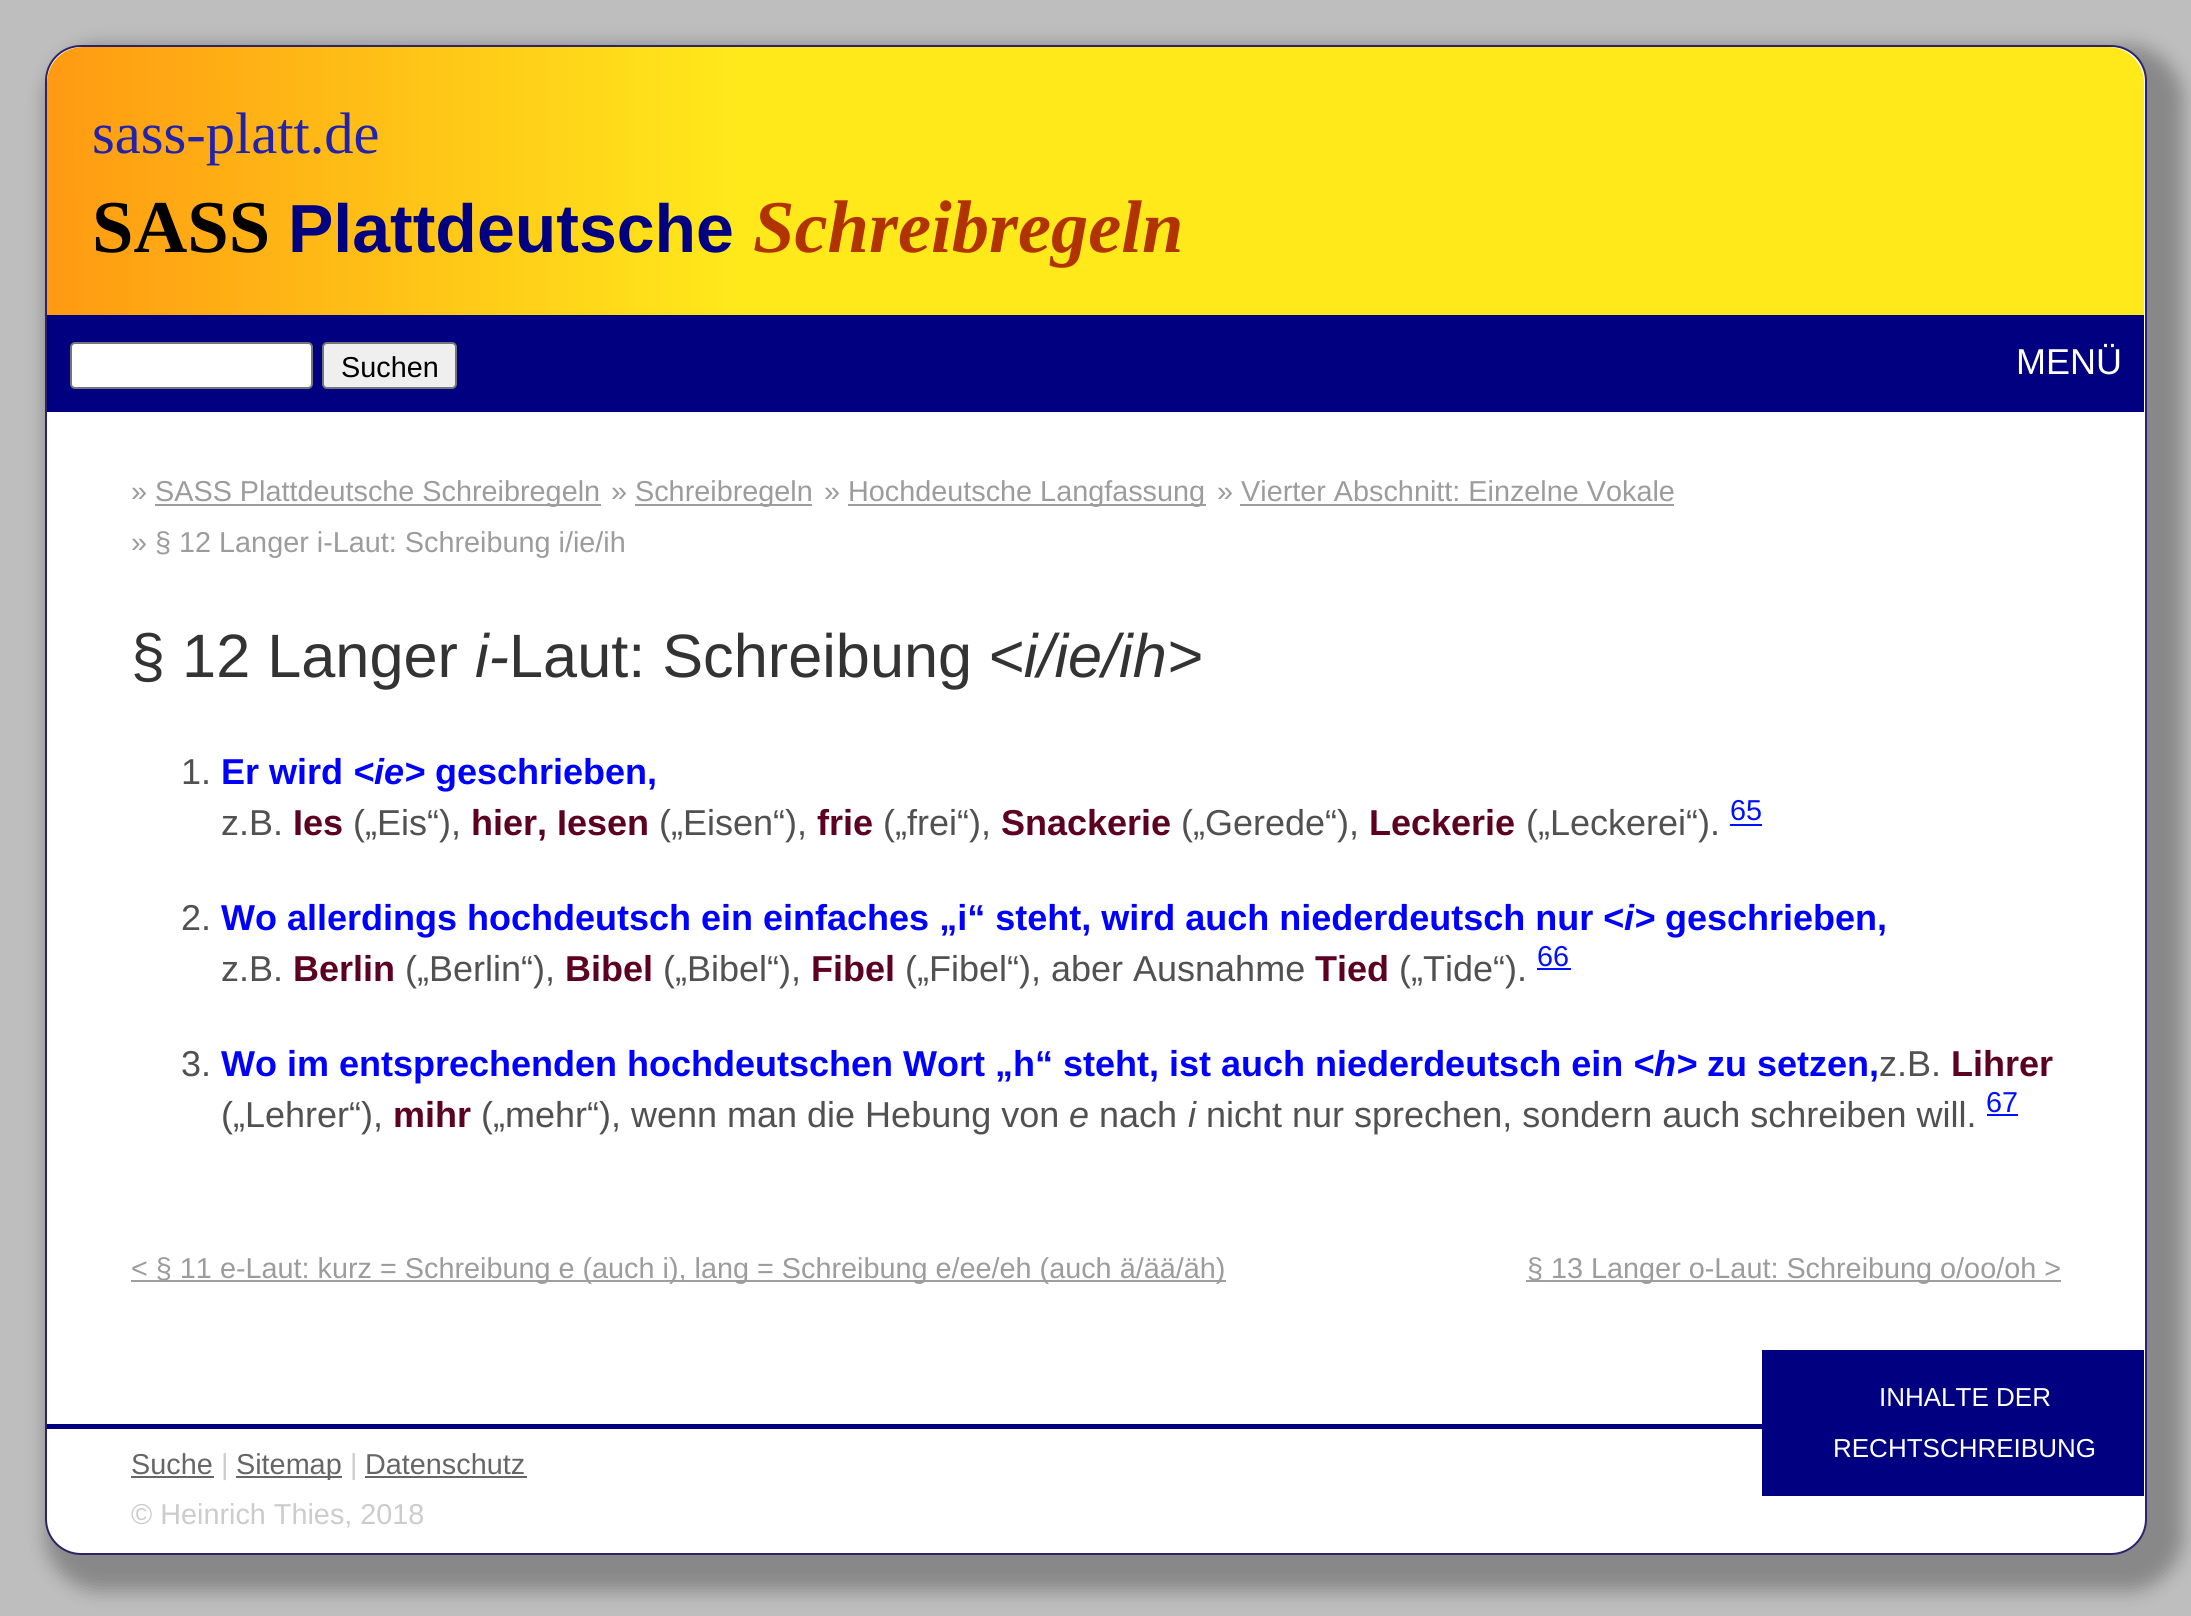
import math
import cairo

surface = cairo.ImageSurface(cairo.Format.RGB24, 2191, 1616)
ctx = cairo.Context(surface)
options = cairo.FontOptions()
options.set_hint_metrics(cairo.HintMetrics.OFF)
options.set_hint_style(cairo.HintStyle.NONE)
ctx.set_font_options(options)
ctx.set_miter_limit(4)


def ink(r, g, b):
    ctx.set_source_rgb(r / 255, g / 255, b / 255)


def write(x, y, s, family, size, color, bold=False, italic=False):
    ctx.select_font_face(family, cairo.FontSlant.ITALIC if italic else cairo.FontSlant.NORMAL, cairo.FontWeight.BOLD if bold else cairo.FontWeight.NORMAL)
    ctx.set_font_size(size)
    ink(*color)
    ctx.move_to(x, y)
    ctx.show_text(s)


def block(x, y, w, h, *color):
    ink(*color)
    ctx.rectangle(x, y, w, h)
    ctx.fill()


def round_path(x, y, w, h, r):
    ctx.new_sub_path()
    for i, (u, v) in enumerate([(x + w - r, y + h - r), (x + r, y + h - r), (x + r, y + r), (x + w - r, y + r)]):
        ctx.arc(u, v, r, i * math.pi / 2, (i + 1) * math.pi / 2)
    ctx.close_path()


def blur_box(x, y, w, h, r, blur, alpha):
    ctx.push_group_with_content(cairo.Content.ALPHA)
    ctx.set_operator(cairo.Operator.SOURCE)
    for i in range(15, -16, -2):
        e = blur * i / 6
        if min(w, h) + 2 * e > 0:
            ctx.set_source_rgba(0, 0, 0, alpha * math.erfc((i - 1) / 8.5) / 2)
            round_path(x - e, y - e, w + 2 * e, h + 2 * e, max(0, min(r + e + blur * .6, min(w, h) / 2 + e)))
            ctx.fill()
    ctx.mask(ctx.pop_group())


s1 = dict(family="Liberation Serif", size=58.5, color=(34, 34, 170))
s2 = dict(family="Liberation Serif", size=74.5, color=(0, 0, 0), bold=True)
s3 = dict(family="Liberation Sans", size=68, color=(0, 0, 128), bold=True)
s4 = dict(family="Liberation Serif", size=74.5, color=(177, 52, 0), bold=True, italic=True)
s5 = dict(family="Liberation Sans", size=28.8, color=(0, 0, 0))
s6 = dict(family="Liberation Sans", size=36, color=(255, 255, 255))
s7 = dict(family="Liberation Sans", size=28.8, color=(156, 156, 156))
s8 = dict(family="Liberation Sans", size=61.25, color=(51, 51, 51))
s9 = dict(family="Liberation Sans", size=61.25, color=(51, 51, 51), italic=True)
s10 = dict(family="Liberation Sans", size=36, color=(81, 81, 81))
s11 = dict(family="Liberation Sans", size=36, color=(0, 0, 255), bold=True)
s12 = dict(family="Liberation Sans", size=36, color=(0, 0, 255), bold=True, italic=True)
s13 = dict(family="Liberation Sans", size=36, color=(92, 1, 32), bold=True)
s14 = dict(family="Liberation Sans", size=28.8, color=(0, 16, 255))
s15 = dict(family="Liberation Sans", size=36, color=(81, 81, 81), italic=True)
s16 = dict(family="Liberation Sans", size=26, color=(255, 255, 255))
s17 = dict(family="Liberation Sans", size=28.8, color=(102, 102, 102))
s18 = dict(family="Liberation Sans", size=28.8, color=(204, 204, 204))

ink(190, 190, 190)
ctx.paint()
ink(136, 136, 136)
blur_box(45, 45, 2138, 1546, 54, 9, 1)
ink(255, 255, 255)
round_path(46, 46, 2100, 1508, 35)
ctx.fill_preserve()
ink(45, 35, 104)
ctx.stroke()
gradient = cairo.LinearGradient(47, 230, 2144, 229)
gradient.add_color_stop_rgba(0, 1, 0.604, 0.071, 1)
gradient.add_color_stop_rgba(0.33, 1, 0.914, 0.106, 1)
gradient.add_color_stop_rgba(1, 1, 0.914, 0.106, 1)
ctx.set_source(gradient)
ctx.new_path()
ctx.move_to(83, 47)
ctx.line_to(2108, 47)
ctx.curve_to(2128, 47, 2144, 63, 2144, 83)
ctx.line_to(2144, 412)
ctx.line_to(47, 412)
ctx.line_to(47, 83)
ctx.curve_to(47, 63, 63, 47, 83, 47)
ctx.close_path()
ctx.fill()
write(92, 153, "sass-platt.de", **s1)
write(92, 252, "SASS", **s2)
write(288, 252, "Plattdeutsche", **s3)
write(753, 252, "Schreibregeln", **s4)
block(47, 315, 2097, 97, 0, 0, 128)
ink(255, 255, 255)
round_path(71, 343, 241, 45, 4)
ctx.fill_preserve()
ink(118, 118, 118)
ctx.stroke()
ink(239, 239, 239)
round_path(323, 343, 133, 45, 4)
ctx.fill_preserve()
ink(118, 118, 118)
ctx.stroke()
write(341, 377, "Suchen", **s5)
write(2016, 374, "MENÜ", **s6)
write(131, 501, "»", **s7)
block(155, 504, 446, 2, 156, 156, 156)
write(155, 501, "SASS Plattdeutsche Schreibregeln", **s7)
write(611, 501, "»", **s7)
block(635, 504, 177, 2, 156, 156, 156)
write(635, 501, "Schreibregeln", **s7)
write(824, 501, "»", **s7)
block(848, 504, 358, 2, 156, 156, 156)
write(848, 501, "Hochdeutsche Langfassung", **s7)
write(1217, 501, "» Vierter Abschnitt: Einzelne Vokale", **s7)
block(1240, 504, 434, 2, 156, 156, 156)
write(131, 552, "» § 12 Langer i-Laut: Schreibung i/ie/ih", **s7)
write(131, 677, "§ 12 Langer", **s8)
write(475, 677, "i-", **s9)
write(509, 677, "Laut: Schreibung", **s8)
write(988, 677, "<i/ie/ih>", **s9)
write(181, 784, "1.", **s10)
write(221, 784, "Er wird", **s11)
write(353, 784, "<ie>", **s12)
write(435, 784, "geschrieben,", **s11)
write(221, 835, "z.B.", **s10)
write(293, 835, "Ies", **s13)
write(353, 835, "(„Eis“),", **s10)
write(471, 835, "hier, Iesen", **s13)
write(659, 835, "(„Eisen“),", **s10)
write(817, 835, "frie", **s13)
write(883, 835, "(„frei“),", **s10)
write(1001, 835, "Snackerie", **s13)
write(1181, 835, "(„Gerede“),", **s10)
write(1369, 835, "Leckerie", **s13)
write(1526, 835, "(„Leckerei“).", **s10)
write(1730, 820, "65", **s14)
block(1730, 824, 32, 2, 0, 16, 255)
write(181, 930, "2.", **s10)
write(221, 930, "Wo allerdings hochdeutsch ein einfaches „i“ steht, wird auch niederdeutsch nur <", **s11)
write(1624, 930, "i>", **s12)
write(1665, 930, "geschrieben,", **s11)
write(221, 981, "z.B.", **s10)
write(293, 981, "Berlin", **s13)
write(405, 981, "(„Berlin“),", **s10)
write(565, 981, "Bibel", **s13)
write(663, 981, "(„Bibel“),", **s10)
write(811, 981, "Fibel", **s13)
write(905, 981, "(„Fibel“), aber Ausnahme", **s10)
write(1315, 981, "Tied", **s13)
write(1399, 981, "(„Tide“).", **s10)
write(1537, 966, "66", **s14)
block(1537, 968, 34, 2, 0, 16, 255)
write(181, 1076, "3.", **s10)
write(221, 1076, "Wo im entsprechenden hochdeutschen Wort „h“ steht, ist auch niederdeutsch ein", **s11)
write(1633, 1076, "<h>", **s12)
write(1707, 1076, "zu setzen,", **s11)
write(1879, 1076, "z.B.", **s10)
write(1951, 1076, "Lihrer", **s13)
write(221, 1127, "(„Lehrer“),", **s10)
write(393, 1127, "mihr", **s13)
write(481, 1127, "(„mehr“), wenn man die Hebung von", **s10)
write(1069, 1127, "e", **s15)
write(1099, 1127, "nach", **s10)
write(1188, 1127, "i", **s15)
write(1206, 1127, "nicht nur sprechen, sondern auch schreiben will.", **s10)
write(1986, 1112, "67", **s14)
block(1987, 1114, 31, 2, 0, 16, 255)
block(131, 1280, 1095, 2, 158, 158, 158)
write(131, 1278, "< § 11 e-Laut: kurz = Schreibung e (auch i), lang = Schreibung e/ee/eh (auch ä/ää/äh)", **s7)
block(1526, 1280, 535, 2, 158, 158, 158)
write(1527, 1278, "§ 13 Langer o-Laut: Schreibung o/oo/oh >", **s7)
block(47, 1424, 1715, 5, 0, 0, 128)
block(1762, 1350, 382, 146, 0, 0, 128)
write(1879, 1406, "INHALTE DER", **s16)
write(1833, 1457, "RECHTSCHREIBUNG", **s16)
write(131, 1474, "Suche", **s17)
block(131, 1476, 83, 2, 102, 102, 102)
write(221, 1474, "|", **s18)
block(236, 1476, 106, 2, 102, 102, 102)
write(236, 1474, "Sitemap", **s17)
write(350, 1474, "|", **s18)
write(365, 1474, "Datenschutz", **s17)
block(365, 1476, 162, 2, 102, 102, 102)
write(131, 1524, "© Heinrich Thies, 2018", **s18)
surface.write_to_png("screenshot.png")
